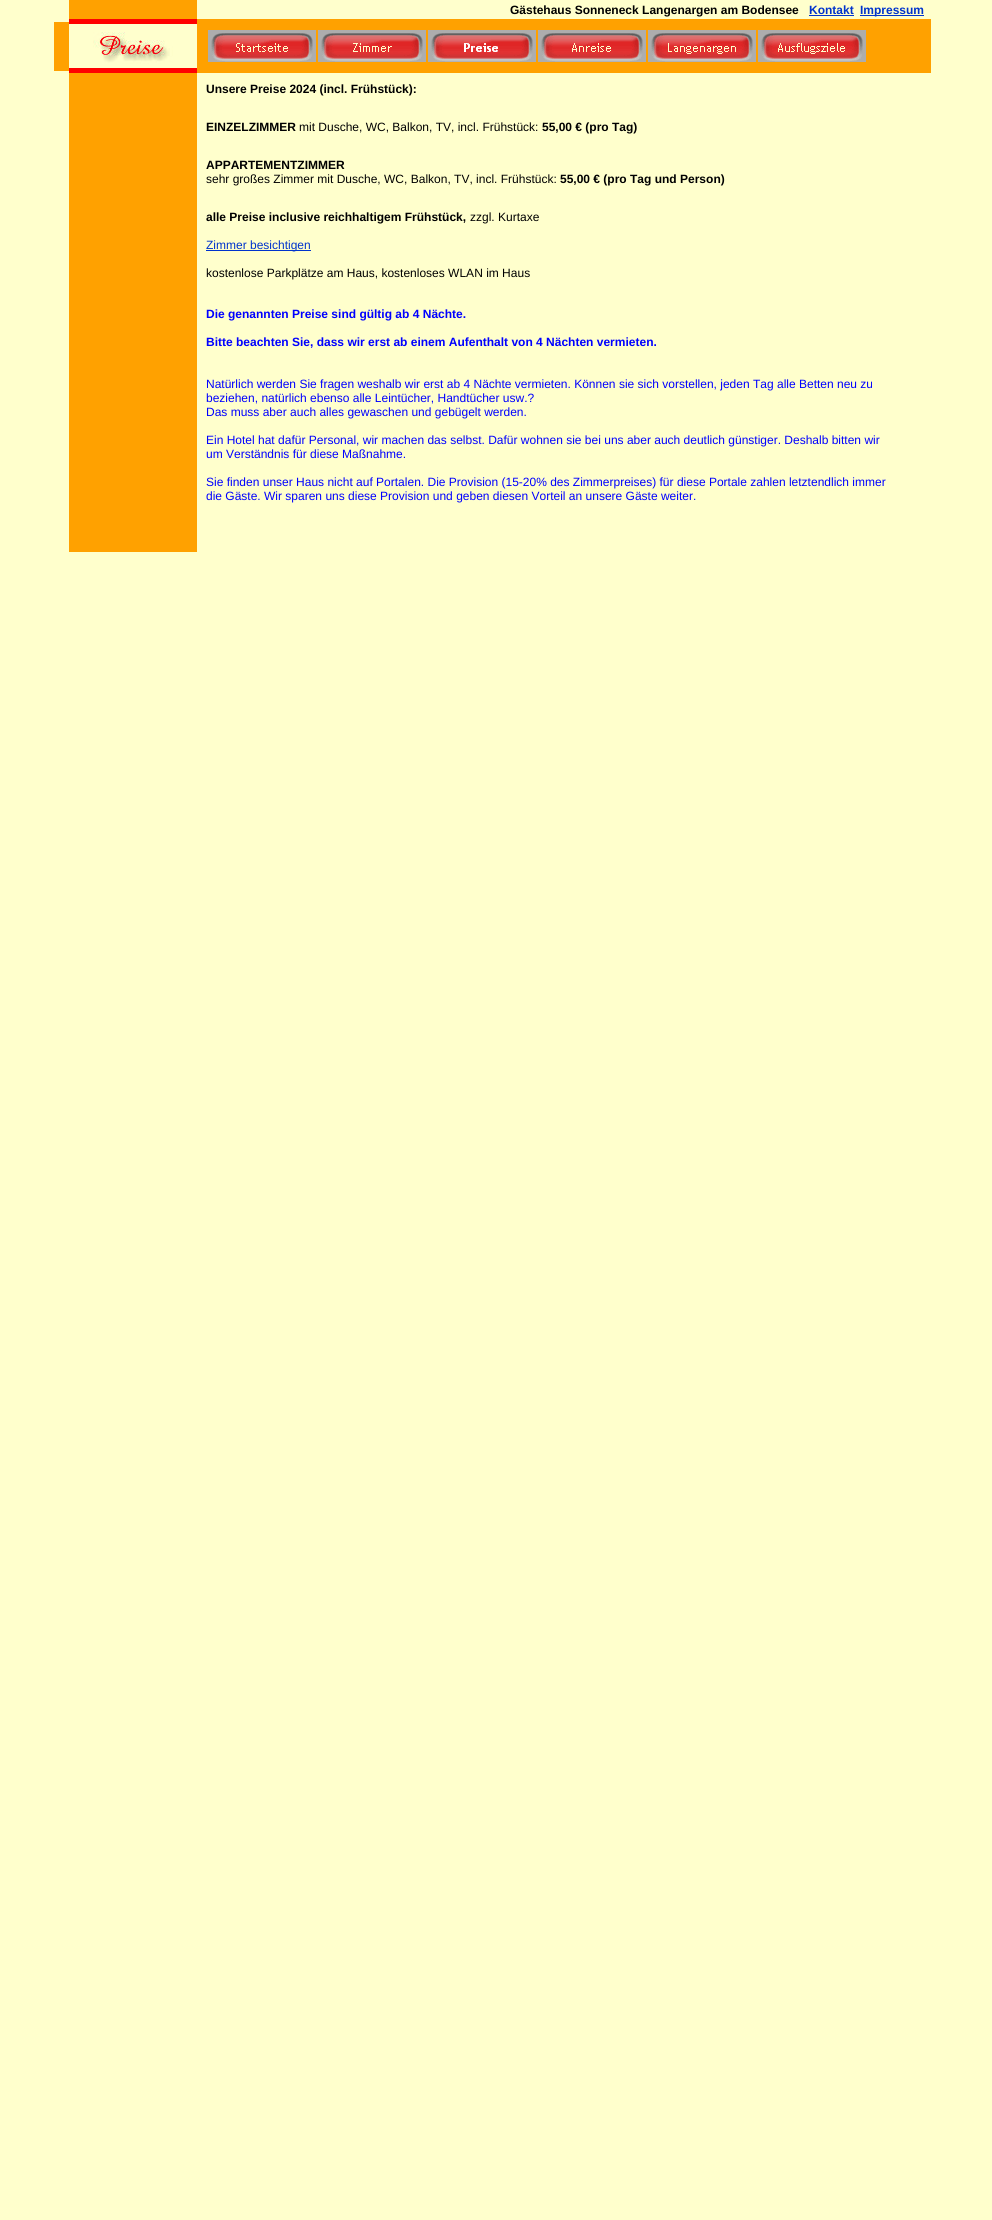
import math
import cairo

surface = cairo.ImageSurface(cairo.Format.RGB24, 992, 2220)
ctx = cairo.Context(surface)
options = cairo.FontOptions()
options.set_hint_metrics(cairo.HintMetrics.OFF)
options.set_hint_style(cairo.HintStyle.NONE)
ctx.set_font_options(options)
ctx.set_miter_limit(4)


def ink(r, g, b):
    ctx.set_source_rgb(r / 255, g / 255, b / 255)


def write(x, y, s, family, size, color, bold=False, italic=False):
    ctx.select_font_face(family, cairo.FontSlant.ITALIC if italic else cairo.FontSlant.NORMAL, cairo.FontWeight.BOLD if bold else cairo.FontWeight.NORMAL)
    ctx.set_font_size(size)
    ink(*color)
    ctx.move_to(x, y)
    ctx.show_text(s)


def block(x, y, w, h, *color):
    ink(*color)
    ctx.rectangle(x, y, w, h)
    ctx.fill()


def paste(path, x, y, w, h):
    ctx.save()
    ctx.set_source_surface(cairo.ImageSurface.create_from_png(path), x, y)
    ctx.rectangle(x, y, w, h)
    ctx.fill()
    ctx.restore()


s1 = dict(family="Liberation Sans", size=12, color=(0, 0, 0), bold=True)
s2 = dict(family="Liberation Sans", size=12, color=(0, 51, 204), bold=True)
s3 = dict(family="Liberation Sans", size=12, color=(0, 0, 0))
s4 = dict(family="Liberation Sans", size=12, color=(0, 51, 204))
s5 = dict(family="Liberation Sans", size=12, color=(0, 0, 255), bold=True)
s6 = dict(family="Liberation Sans", size=12, color=(0, 0, 255))

ink(255, 255, 204)
ctx.paint()
block(69, 0, 128, 19, 255, 161, 0)
write(510, 14, "Gästehaus Sonneneck Langenargen am Bodensee", **s1)
write(809, 14, "Kontakt", **s2)
block(809, 15, 45, 1, 0, 51, 204)
block(860, 15, 64, 1, 0, 51, 204)
write(860, 14, "Impressum", **s2)
block(54, 22, 15, 49, 255, 161, 0)
block(69, 19, 128, 54, 255, 0, 0)
paste("pic1.png", 69, 24, 128, 44)
block(197, 19, 734, 54, 255, 161, 0)
paste("pic2.png", 208, 30, 108, 32)
paste("pic3.png", 318, 30, 108, 32)
paste("pic4.png", 428, 30, 108, 32)
paste("pic5.png", 538, 30, 108, 32)
paste("pic6.png", 648, 30, 108, 32)
paste("pic7.png", 758, 30, 108, 32)
block(69, 73, 128, 479, 255, 161, 0)
write(206, 93, "Unsere Preise 2024 (incl. Frühstück):", **s1)
write(206, 131, "EINZELZIMMER", **s1)
write(299, 131, "mit Dusche, WC, Balkon, TV, incl. Frühstück:", **s3)
write(542, 131, "55,00 € (pro Tag)", **s1)
write(206, 169, "APPARTEMENTZIMMER", **s1)
write(206, 183, "sehr großes Zimmer mit Dusche, WC, Balkon, TV, incl. Frühstück:", **s3)
write(560, 183, "55,00 € (pro Tag und Person)", **s1)
write(206, 221, "alle Preise inclusive reichhaltigem Frühstück,", **s1)
write(470, 221, "zzgl. Kurtaxe", **s3)
block(206, 250, 105, 1, 0, 51, 204)
write(206, 249, "Zimmer besichtigen", **s4)
write(206, 277, "kostenlose Parkplätze am Haus, kostenloses WLAN im Haus", **s3)
write(206, 318, "Die genannten Preise sind gültig ab 4 Nächte.", **s5)
write(206, 346, "Bitte beachten Sie, dass wir erst ab einem Aufenthalt von 4 Nächten vermieten.", **s5)
write(206, 388, "Natürlich werden Sie fragen weshalb wir erst ab 4 Nächte vermieten. Können sie sich vorstellen, jeden Tag alle Betten neu zu", **s6)
write(206, 402, "beziehen, natürlich ebenso alle Leintücher, Handtücher usw.?", **s6)
write(206, 416, "Das muss aber auch alles gewaschen und gebügelt werden.", **s6)
write(206, 444, "Ein Hotel hat dafür Personal, wir machen das selbst. Dafür wohnen sie bei uns aber auch deutlich günstiger. Deshalb bitten wir", **s6)
write(206, 458, "um Verständnis für diese Maßnahme.", **s6)
write(206, 486, "Sie finden unser Haus nicht auf Portalen. Die Provision (15-20% des Zimmerpreises) für diese Portale zahlen letztendlich immer", **s6)
write(206, 500, "die Gäste. Wir sparen uns diese Provision und geben diesen Vorteil an unsere Gäste weiter.", **s6)
surface.write_to_png("screenshot.png")
